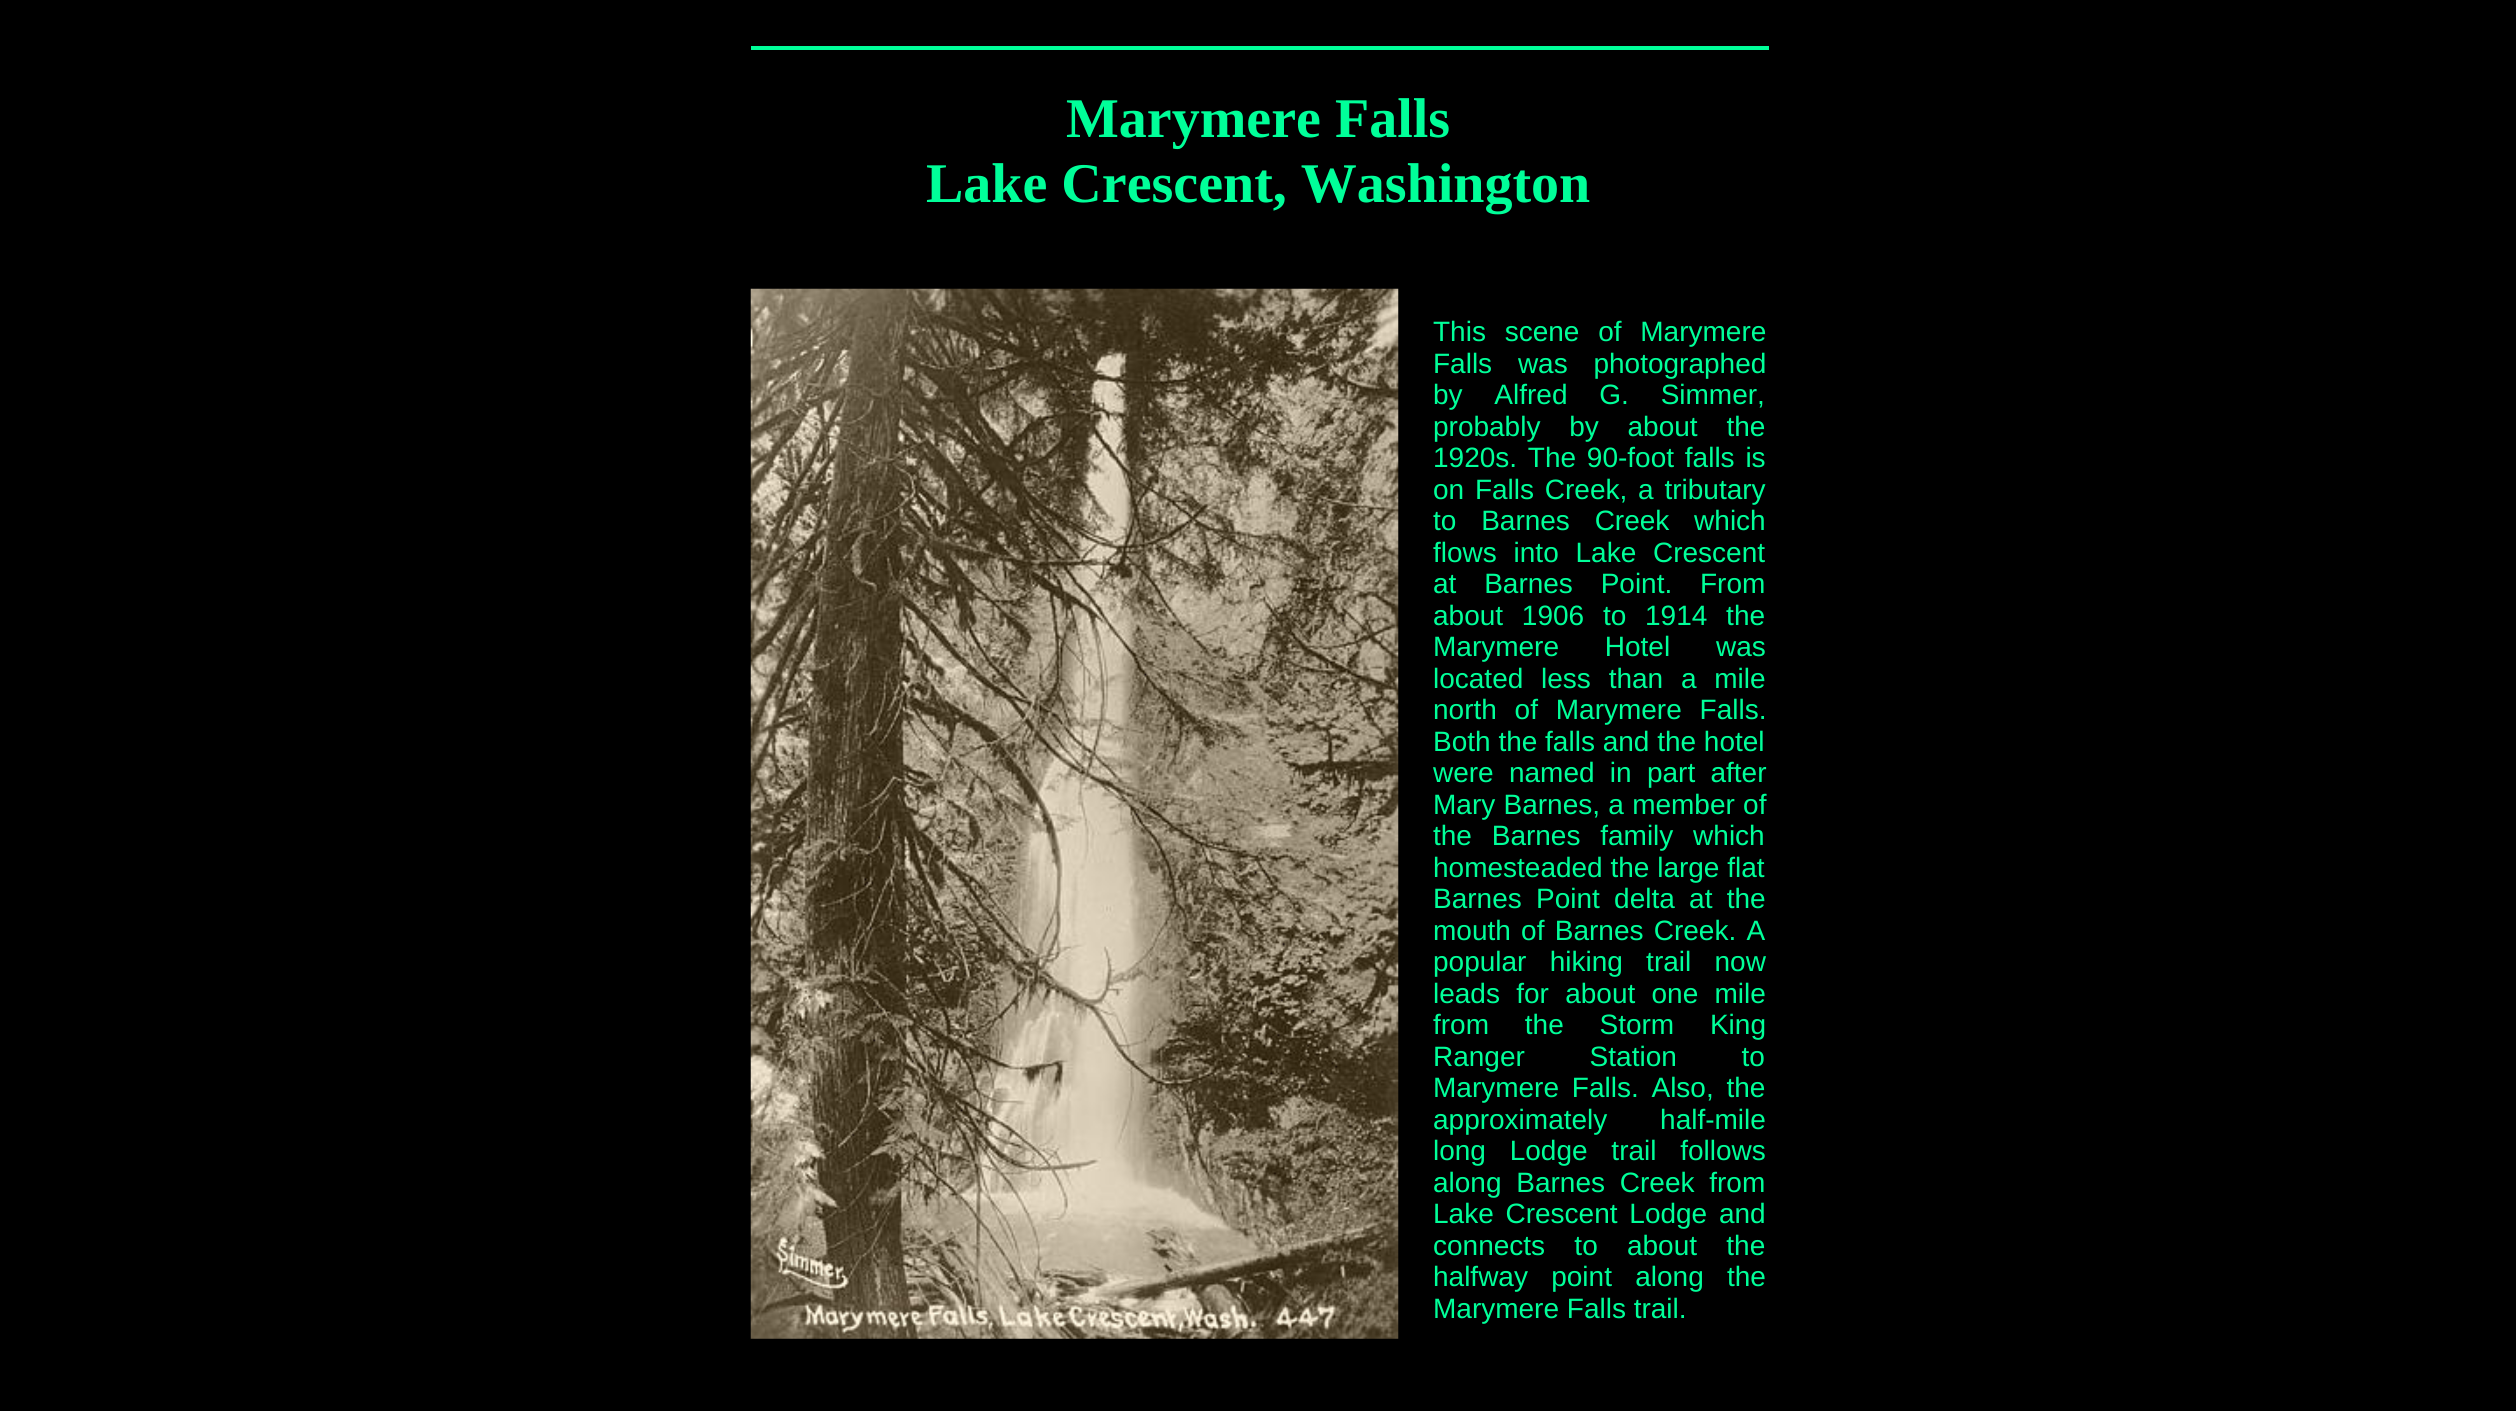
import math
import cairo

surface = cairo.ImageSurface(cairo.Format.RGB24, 2516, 1411)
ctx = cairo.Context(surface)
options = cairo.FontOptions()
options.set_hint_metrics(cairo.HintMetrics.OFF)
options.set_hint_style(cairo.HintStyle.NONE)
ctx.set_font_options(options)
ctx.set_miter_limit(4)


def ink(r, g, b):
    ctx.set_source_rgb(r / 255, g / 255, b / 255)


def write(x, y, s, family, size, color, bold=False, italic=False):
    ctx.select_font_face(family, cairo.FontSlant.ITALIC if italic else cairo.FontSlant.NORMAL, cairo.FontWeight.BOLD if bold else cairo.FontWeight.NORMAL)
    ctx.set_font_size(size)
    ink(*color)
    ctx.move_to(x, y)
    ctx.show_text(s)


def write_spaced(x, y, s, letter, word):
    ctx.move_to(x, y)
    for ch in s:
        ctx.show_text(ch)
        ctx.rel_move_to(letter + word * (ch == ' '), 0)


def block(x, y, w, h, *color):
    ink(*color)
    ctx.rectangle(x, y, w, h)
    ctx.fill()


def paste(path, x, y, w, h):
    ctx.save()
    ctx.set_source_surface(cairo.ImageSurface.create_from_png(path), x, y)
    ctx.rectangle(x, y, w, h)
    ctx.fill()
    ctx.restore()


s1 = dict(family="Liberation Serif", size=56, color=(0, 255, 153), bold=True)
s2 = dict(family="Liberation Sans", size=28, color=(0, 255, 153))

ink(0, 0, 0)
ctx.paint()
block(751, 46, 1018, 4, 0, 255, 153)
write(1066, 137, "Marymere Falls", **s1)
write(926, 202, "Lake Crescent, Washington", **s1)
paste("pic1.png", 750, 288, 649, 1051)
ctx.select_font_face("Liberation Sans")
ctx.set_font_size(28)
write_spaced(1433, 341, "This scene of Marymere", 0, 11)
write_spaced(1433, 373, "Falls was photographed", 0, 18)
write_spaced(1433, 404, "by Alfred G. Simmer,", 0, 24)
write_spaced(1433, 436, "probably by about the", 0, 21)
write_spaced(1433, 467, "1920s. The 90-foot falls is", 0, 3)
write_spaced(1433, 499, "on Falls Creek, a tributary", 0, 3)
write_spaced(1433, 530, "to Barnes Creek which", 0, 17)
write_spaced(1433, 562, "flows into Lake Crescent", 0, 9)
write_spaced(1433, 593, "at Barnes Point. From", 0, 20)
write_spaced(1433, 625, "about 1906 to 1914 the", 0, 11)
write_spaced(1433, 656, "Marymere Hotel was", 0, 38)
write_spaced(1433, 688, "located less than a mile", 0, 10)
write_spaced(1433, 719, "north of Marymere Falls.", 0, 10)
write(1433, 751, "Both the falls and the hotel", **s2)
write_spaced(1433, 782, "were named in part after", 0, 7.5)
write_spaced(1433, 814, "Mary Barnes, a member of", 0, 0.5)
write_spaced(1433, 845, "the Barnes family which", 0, 12)
write(1433, 877, "homesteaded the large flat", **s2)
write_spaced(1433, 908, "Barnes Point delta at the", 0, 6.5)
write_spaced(1433, 940, "mouth of Barnes Creek. A", 0, 2.5)
write_spaced(1433, 971, "popular hiking trail now", 0, 15.5)
write_spaced(1433, 1003, "leads for about one mile", 0, 8.5)
write_spaced(1433, 1034, "from the Storm King", 0, 28)
write_spaced(1433, 1066, "Ranger Station to", 0, 57)
write_spaced(1433, 1097, "Marymere Falls. Also, the", 0, 5)
write_spaced(1433, 1129, "approximately half-mile", 0, 45)
write_spaced(1433, 1160, "long Lodge trail follows", 0, 16)
write_spaced(1433, 1192, "along Barnes Creek from", 0, 7)
write_spaced(1433, 1223, "Lake Crescent Lodge and", 0, 4)
write_spaced(1433, 1255, "connects to about the", 0, 21.5)
write_spaced(1433, 1286, "halfway point along the", 0, 15.5)
write(1433, 1318, "Marymere Falls trail.", **s2)
surface.write_to_png("screenshot.png")
